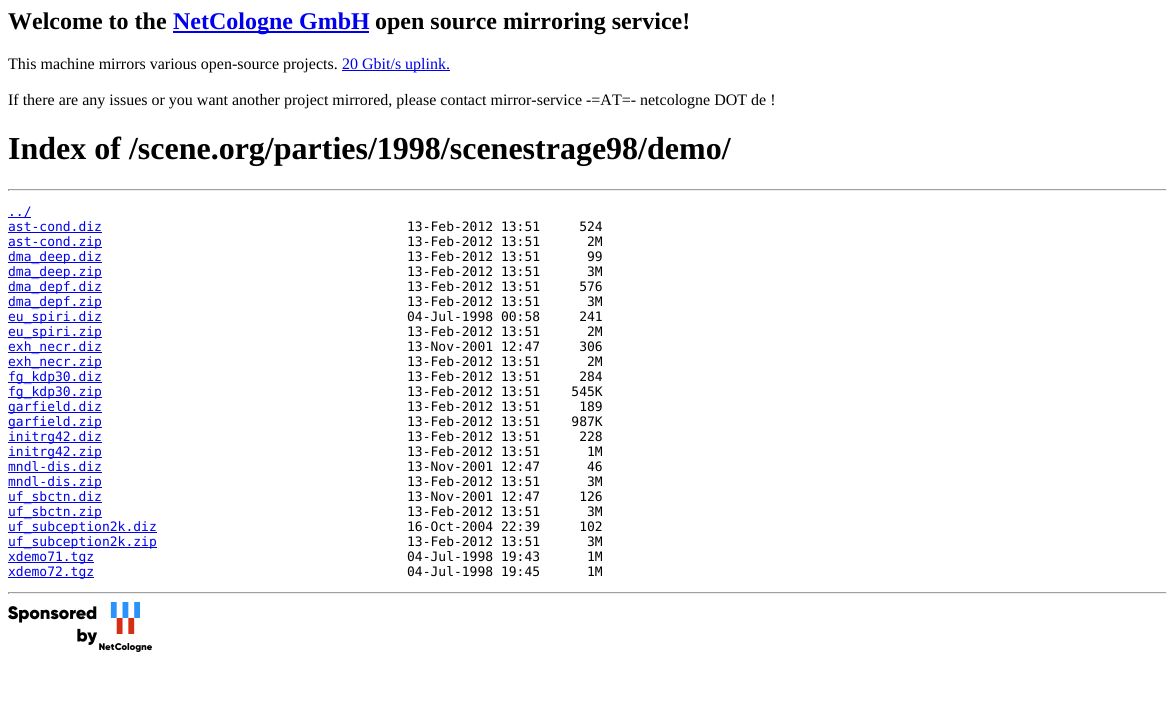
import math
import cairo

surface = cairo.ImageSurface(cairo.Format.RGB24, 1175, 719)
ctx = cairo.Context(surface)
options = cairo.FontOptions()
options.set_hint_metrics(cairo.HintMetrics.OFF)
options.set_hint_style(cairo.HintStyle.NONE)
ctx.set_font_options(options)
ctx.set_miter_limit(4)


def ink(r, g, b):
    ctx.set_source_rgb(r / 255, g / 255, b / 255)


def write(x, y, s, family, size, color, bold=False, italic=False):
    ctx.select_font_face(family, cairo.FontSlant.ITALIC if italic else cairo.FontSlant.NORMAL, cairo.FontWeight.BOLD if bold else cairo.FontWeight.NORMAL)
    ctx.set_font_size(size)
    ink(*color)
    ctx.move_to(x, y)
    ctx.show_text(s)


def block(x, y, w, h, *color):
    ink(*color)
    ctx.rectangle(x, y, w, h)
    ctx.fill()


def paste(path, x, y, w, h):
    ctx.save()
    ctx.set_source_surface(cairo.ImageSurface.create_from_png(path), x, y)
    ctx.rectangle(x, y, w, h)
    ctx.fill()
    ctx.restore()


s1 = dict(family="Liberation Serif", size=24, color=(0, 0, 0), bold=True)
s2 = dict(family="Liberation Serif", size=24, color=(0, 0, 238), bold=True)
s3 = dict(family="Liberation Serif", size=16, color=(0, 0, 0))
s4 = dict(family="Liberation Serif", size=16, color=(0, 0, 238))
s5 = dict(family="Liberation Serif", size=32, color=(0, 0, 0), bold=True)
s6 = dict(family="DejaVu Sans Mono", size=13, color=(0, 0, 238))
s7 = dict(family="DejaVu Sans Mono", size=13, color=(0, 0, 0))

ink(255, 255, 255)
ctx.paint()
write(8, 29, "Welcome to the", **s1)
block(173, 31, 196, 2, 0, 0, 238)
write(173, 29, "NetCologne GmbH", **s2)
write(375, 29, "open source mirroring service!", **s1)
write(8, 69, "This machine mirrors various open-source projects.", **s3)
block(342, 70, 108, 1, 0, 0, 238)
write(342, 69, "20 Gbit/s uplink.", **s4)
write(8, 105, "If there are any issues or you want another project mirrored, please contact mirror-service -=AT=- netcologne DOT de !", **s3)
write(8, 159, "Index of /scene.org/parties/1998/scenestrage98/demo/", **s5)
block(8, 189, 1159, 1, 159, 159, 159)
block(1166, 189, 1, 2, 238, 238, 238)
block(8, 190, 1159, 1, 238, 238, 238)
block(8, 189, 1, 2, 159, 159, 159)
block(8, 217, 23, 1, 0, 0, 238)
write(8, 216, "../", **s6)
write(8, 231, "ast-cond.diz", **s6)
block(8, 232, 94, 1, 0, 0, 238)
write(407, 231, "13-Feb-2012 13:51     524", **s7)
block(8, 247, 94, 1, 0, 0, 238)
write(8, 246, "ast-cond.zip", **s6)
write(407, 246, "13-Feb-2012 13:51      2M", **s7)
block(8, 262, 94, 1, 0, 0, 238)
write(8, 261, "dma_deep.diz", **s6)
write(407, 261, "13-Feb-2012 13:51      99", **s7)
block(8, 277, 94, 1, 0, 0, 238)
write(8, 276, "dma_deep.zip", **s6)
write(407, 276, "13-Feb-2012 13:51      3M", **s7)
block(8, 292, 94, 1, 0, 0, 238)
write(8, 291, "dma_depf.diz", **s6)
write(407, 291, "13-Feb-2012 13:51     576", **s7)
block(8, 307, 94, 1, 0, 0, 238)
write(8, 306, "dma_depf.zip", **s6)
write(407, 306, "13-Feb-2012 13:51      3M", **s7)
block(8, 322, 94, 1, 0, 0, 238)
write(8, 321, "eu_spiri.diz", **s6)
write(407, 321, "04-Jul-1998 00:58     241", **s7)
block(8, 337, 94, 1, 0, 0, 238)
write(8, 336, "eu_spiri.zip", **s6)
write(407, 336, "13-Feb-2012 13:51      2M", **s7)
block(8, 352, 94, 1, 0, 0, 238)
write(8, 351, "exh_necr.diz", **s6)
write(407, 351, "13-Nov-2001 12:47     306", **s7)
block(8, 367, 94, 1, 0, 0, 238)
write(8, 366, "exh_necr.zip", **s6)
write(407, 366, "13-Feb-2012 13:51      2M", **s7)
block(8, 382, 94, 1, 0, 0, 238)
write(8, 381, "fg_kdp30.diz", **s6)
write(407, 381, "13-Feb-2012 13:51     284", **s7)
block(8, 397, 94, 1, 0, 0, 238)
write(8, 396, "fg_kdp30.zip", **s6)
write(407, 396, "13-Feb-2012 13:51    545K", **s7)
block(8, 412, 94, 1, 0, 0, 238)
write(8, 411, "garfield.diz", **s6)
write(407, 411, "13-Feb-2012 13:51     189", **s7)
block(8, 427, 94, 1, 0, 0, 238)
write(8, 426, "garfield.zip", **s6)
write(407, 426, "13-Feb-2012 13:51    987K", **s7)
block(8, 442, 94, 1, 0, 0, 238)
write(8, 441, "initrg42.diz", **s6)
write(407, 441, "13-Feb-2012 13:51     228", **s7)
block(8, 457, 94, 1, 0, 0, 238)
write(8, 456, "initrg42.zip", **s6)
write(407, 456, "13-Feb-2012 13:51      1M", **s7)
write(8, 471, "mndl-dis.diz", **s6)
block(8, 472, 94, 1, 0, 0, 238)
write(407, 471, "13-Nov-2001 12:47      46", **s7)
block(8, 487, 94, 1, 0, 0, 238)
write(8, 486, "mndl-dis.zip", **s6)
write(407, 486, "13-Feb-2012 13:51      3M", **s7)
block(8, 502, 94, 1, 0, 0, 238)
write(8, 501, "uf_sbctn.diz", **s6)
write(407, 501, "13-Nov-2001 12:47     126", **s7)
block(8, 517, 94, 1, 0, 0, 238)
write(8, 516, "uf_sbctn.zip", **s6)
write(407, 516, "13-Feb-2012 13:51      3M", **s7)
block(8, 532, 149, 1, 0, 0, 238)
write(8, 531, "uf_subception2k.diz", **s6)
write(407, 531, "16-Oct-2004 22:39     102", **s7)
block(8, 547, 149, 1, 0, 0, 238)
write(8, 546, "uf_subception2k.zip", **s6)
write(407, 546, "13-Feb-2012 13:51      3M", **s7)
block(8, 562, 86, 1, 0, 0, 238)
write(8, 561, "xdemo71.tgz", **s6)
write(407, 561, "04-Jul-1998 19:43      1M", **s7)
block(8, 577, 86, 1, 0, 0, 238)
write(8, 576, "xdemo72.tgz", **s6)
write(407, 576, "04-Jul-1998 19:45      1M", **s7)
block(8, 592, 1159, 1, 159, 159, 159)
block(1166, 592, 1, 2, 238, 238, 238)
block(8, 593, 1159, 1, 238, 238, 238)
block(8, 592, 1, 2, 159, 159, 159)
paste("pic1.png", 8, 602, 144, 50)
surface.write_to_png("screenshot.png")
